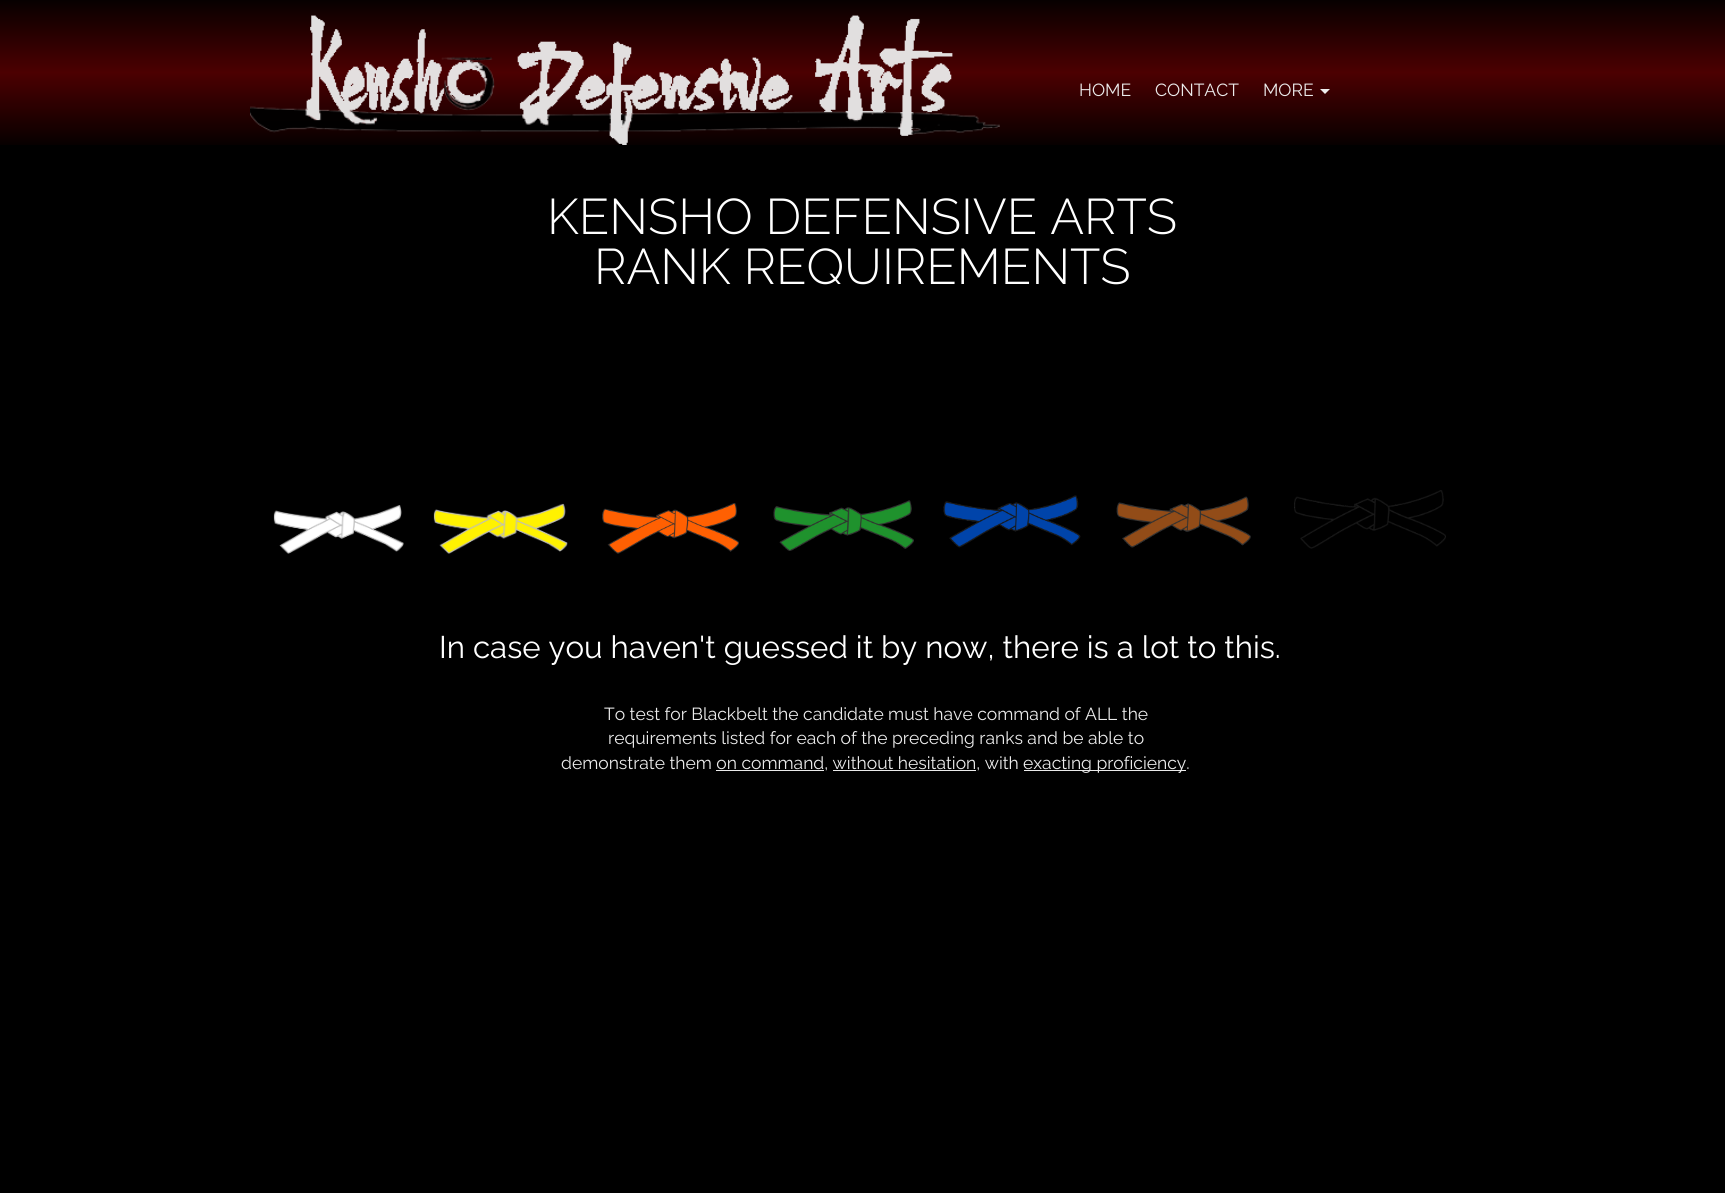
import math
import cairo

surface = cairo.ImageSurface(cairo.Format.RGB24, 1725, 1193)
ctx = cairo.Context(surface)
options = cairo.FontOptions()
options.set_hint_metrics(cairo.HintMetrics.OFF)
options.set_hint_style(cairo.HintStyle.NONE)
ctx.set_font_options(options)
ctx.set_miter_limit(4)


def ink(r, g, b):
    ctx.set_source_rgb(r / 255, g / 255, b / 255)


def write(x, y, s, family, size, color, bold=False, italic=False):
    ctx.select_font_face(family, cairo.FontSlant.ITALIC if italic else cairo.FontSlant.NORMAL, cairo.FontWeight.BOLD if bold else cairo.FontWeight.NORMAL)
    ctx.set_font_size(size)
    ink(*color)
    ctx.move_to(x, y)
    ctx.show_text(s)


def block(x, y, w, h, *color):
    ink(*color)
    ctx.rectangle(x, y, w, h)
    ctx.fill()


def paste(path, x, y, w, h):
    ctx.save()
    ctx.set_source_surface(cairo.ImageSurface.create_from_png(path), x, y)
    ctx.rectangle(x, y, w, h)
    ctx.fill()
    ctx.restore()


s1 = dict(family="Raleway", size=17.5, color=(235, 235, 235))
s2 = dict(family="Raleway Light", size=50, color=(255, 255, 255))
s3 = dict(family="Raleway", size=31.25, color=(255, 255, 255))

ink(255, 255, 255)
ctx.paint()
gradient = cairo.LinearGradient(863, 0, 863, 145)
gradient.add_color_stop_rgba(0, 0.027, 0, 0, 1)
gradient.add_color_stop_rgba(0.5, 0.298, 0, 0.004, 1)
gradient.add_color_stop_rgba(1, 0.027, 0, 0, 1)
ctx.set_source(gradient)
ctx.rectangle(0, 0, 1725, 145)
ctx.fill()
paste("pic1.png", 250, 15, 750, 130)
write(1079, 96, "HOME", **s1)
write(1155, 96, "CONTACT", **s1)
write(1263, 96, "MORE", **s1)
ink(239, 239, 239)
ctx.new_path()
ctx.move_to(1320, 89)
ctx.line_to(1330, 89)
ctx.line_to(1325, 94)
ctx.close_path()
ctx.fill()
block(0, 145, 1725, 1048, 0, 0, 0)
write(547, 234, "KENSHO DEFENSIVE ARTS", **s2)
write(594, 284, "RANK REQUIREMENTS", **s2)
paste("pic2.png", 273, 505, 131, 49)
paste("pic3.png", 433, 503, 135, 51)
paste("pic4.png", 602, 503, 137, 51)
paste("pic5.png", 773, 500, 141, 51)
paste("pic6.png", 943, 495, 138, 53)
paste("pic7.png", 1116, 496, 135, 52)
paste("pic8.png", 1294, 490, 152, 59)
write(439, 658, "In case you haven't guessed it by now, there is a lot to this.", **s3)
write(604, 720, "To test for Blackbelt the candidate must have command of ALL the", **s1)
write(608, 744, "requirements listed for each of the preceding ranks and be able to", **s1)
write(561, 769, "demonstrate them on command, without hesitation, with", **s1)
block(716, 770, 108, 1, 235, 235, 235)
block(833, 770, 143, 1, 235, 235, 235)
block(1024, 770, 162, 1, 235, 235, 235)
write(1023, 769, "exacting proficiency.", **s1)
surface.write_to_png("screenshot.png")
